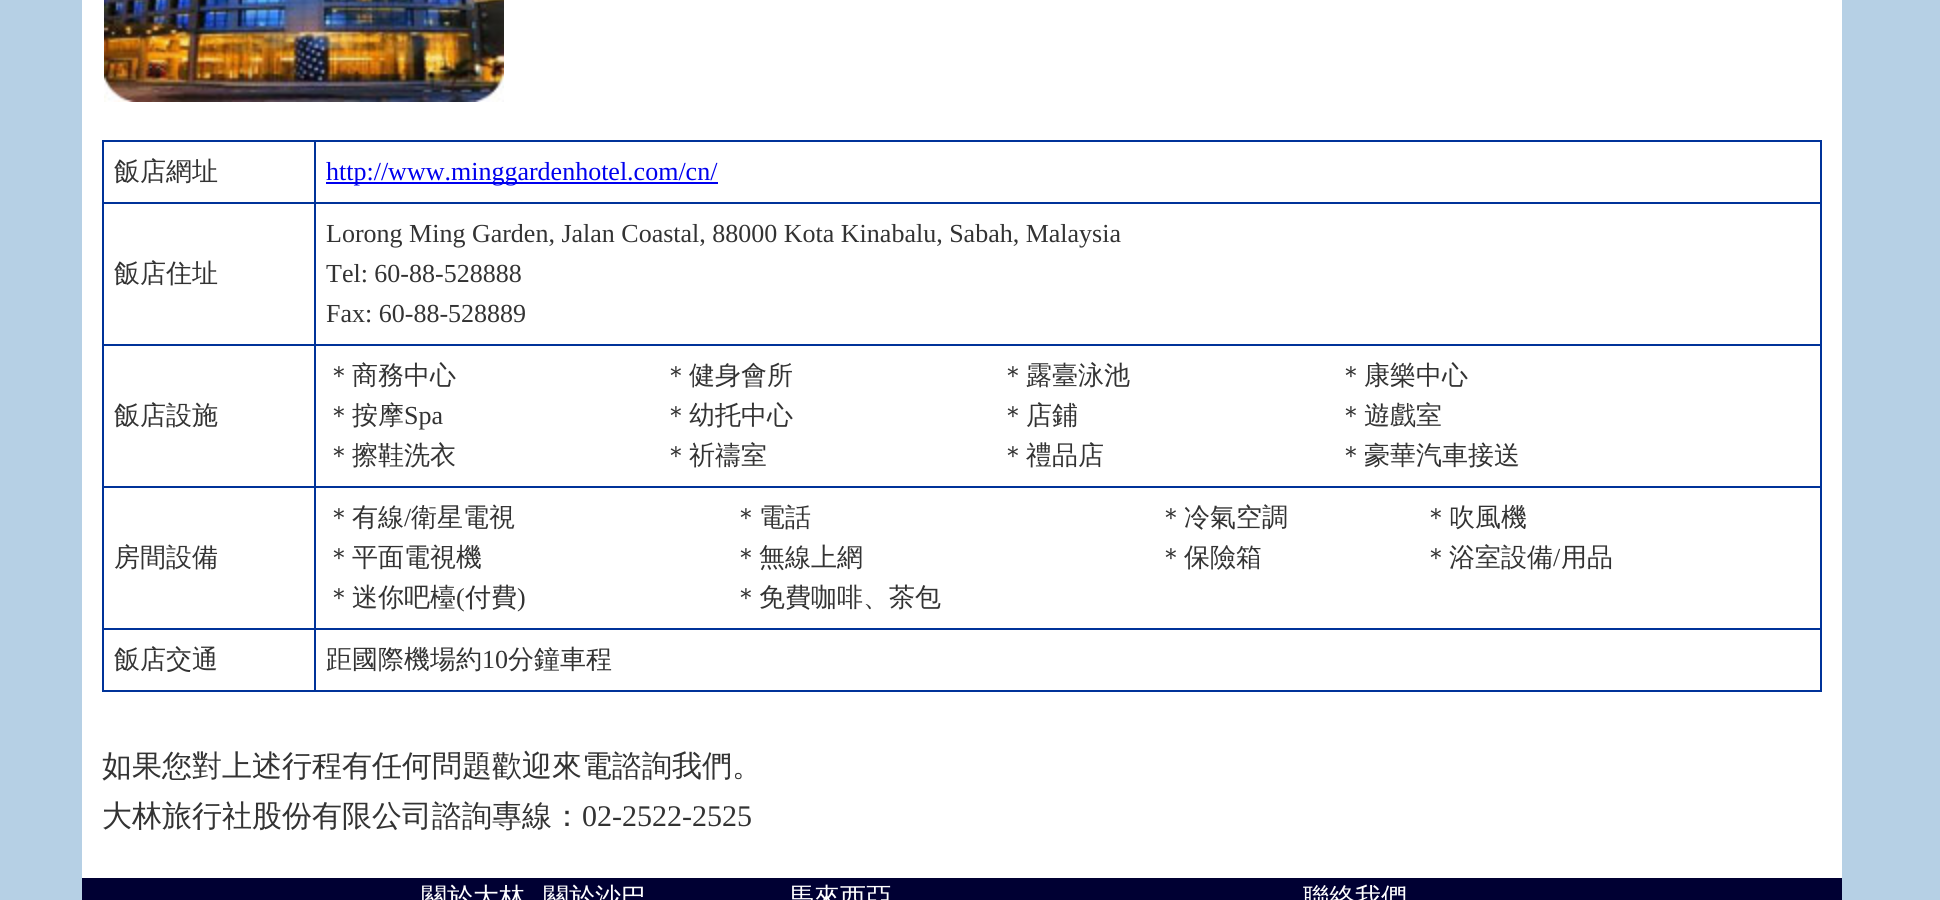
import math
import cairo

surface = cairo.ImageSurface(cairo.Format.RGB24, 1940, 900)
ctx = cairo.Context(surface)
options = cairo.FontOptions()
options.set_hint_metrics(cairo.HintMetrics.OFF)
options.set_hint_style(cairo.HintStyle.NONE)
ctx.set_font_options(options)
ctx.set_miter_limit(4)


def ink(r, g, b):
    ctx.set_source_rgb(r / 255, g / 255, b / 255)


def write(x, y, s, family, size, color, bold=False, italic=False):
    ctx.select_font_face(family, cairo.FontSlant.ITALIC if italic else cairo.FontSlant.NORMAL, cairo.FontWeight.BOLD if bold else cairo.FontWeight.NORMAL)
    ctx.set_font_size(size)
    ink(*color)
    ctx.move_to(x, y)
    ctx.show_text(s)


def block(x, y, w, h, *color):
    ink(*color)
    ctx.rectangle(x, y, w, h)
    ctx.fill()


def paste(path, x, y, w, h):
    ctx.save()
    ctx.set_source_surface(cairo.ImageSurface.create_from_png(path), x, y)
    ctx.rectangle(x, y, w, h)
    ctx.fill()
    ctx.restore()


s1 = dict(family="WenQuanYi Zen Hei Medium", size=26, color=(51, 51, 51))
s2 = dict(family="Liberation Serif", size=26, color=(0, 0, 238))
s3 = dict(family="Liberation Serif", size=26, color=(51, 51, 51))
s4 = dict(family="WenQuanYi Zen Hei Medium", size=30, color=(51, 51, 51))
s5 = dict(family="Liberation Serif", size=30, color=(51, 51, 51))
s6 = dict(family="WenQuanYi Zen Hei Medium", size=26, color=(255, 255, 255))

ink(182, 208, 229)
ctx.paint()
block(82, 0, 1760, 878, 255, 255, 255)
paste("pic1.png", 104, 0, 400, 102)
block(102, 140, 1720, 552, 0, 51, 153)
block(104, 142, 210, 60, 255, 255, 255)
write(114, 180, "飯店網址", **s1)
block(316, 142, 1504, 60, 255, 255, 255)
block(326, 182, 392, 2, 0, 0, 238)
write(326, 180, "http://www.minggardenhotel.com/cn/", **s2)
block(104, 204, 210, 140, 255, 255, 255)
write(114, 282, "飯店住址", **s1)
block(316, 204, 1504, 140, 255, 255, 255)
write(326, 242, "Lorong Ming Garden, Jalan Coastal, 88000 Kota Kinabalu, Sabah, Malaysia", **s3)
write(326, 282, "Tel: 60-88-528888", **s3)
write(326, 322, "Fax: 60-88-528889", **s3)
block(104, 346, 210, 140, 255, 255, 255)
write(114, 424, "飯店設施", **s1)
block(316, 346, 1504, 140, 255, 255, 255)
write(326, 384, "＊商務中心", **s1)
write(663, 384, "＊健身會所", **s1)
write(1000, 384, "＊露臺泳池", **s1)
write(1338, 384, "＊康樂中心", **s1)
write(326, 424, "＊按摩", **s1)
write(404, 424, "Spa", **s3)
write(663, 424, "＊幼托中心", **s1)
write(1000, 424, "＊店鋪", **s1)
write(1338, 424, "＊遊戲室", **s1)
write(326, 464, "＊擦鞋洗衣", **s1)
write(663, 464, "＊祈禱室", **s1)
write(1000, 464, "＊禮品店", **s1)
write(1338, 464, "＊豪華汽車接送", **s1)
block(104, 488, 210, 140, 255, 255, 255)
write(114, 566, "房間設備", **s1)
block(316, 488, 1504, 140, 255, 255, 255)
write(326, 526, "＊有線", **s1)
write(404, 526, "/", **s3)
write(411, 526, "衛星電視", **s1)
write(733, 526, "＊電話", **s1)
write(1158, 526, "＊冷氣空調", **s1)
write(1423, 526, "＊吹風機", **s1)
write(326, 566, "＊平面電視機", **s1)
write(733, 566, "＊無線上網", **s1)
write(1158, 566, "＊保險箱", **s1)
write(1423, 566, "＊浴室設備", **s1)
write(1553, 566, "/", **s3)
write(1561, 566, "用品", **s1)
write(326, 606, "＊迷你吧檯", **s1)
write(456, 606, "(", **s3)
write(465, 606, "付費", **s1)
write(517, 606, ")", **s3)
write(733, 606, "＊免費咖啡、茶包", **s1)
block(104, 630, 210, 60, 255, 255, 255)
write(114, 668, "飯店交通", **s1)
block(316, 630, 1504, 60, 255, 255, 255)
write(326, 668, "距國際機場約", **s1)
write(482, 668, "10", **s3)
write(508, 668, "分鐘車程", **s1)
write(102, 776, "如果您對上述行程有任何問題歡迎來電諮詢我們。", **s4)
write(102, 826, "大林旅行社股份有限公司諮詢專線：", **s4)
write(582, 826, "02-2522-2525", **s5)
block(82, 878, 1760, 22, 0, 0, 51)
write(421, 906, "關於大林", **s6)
write(543, 906, "關於沙巴", **s6)
write(788, 906, "馬來西亞", **s6)
write(1303, 906, "聯絡我們", **s6)
surface.write_to_png("screenshot.png")
